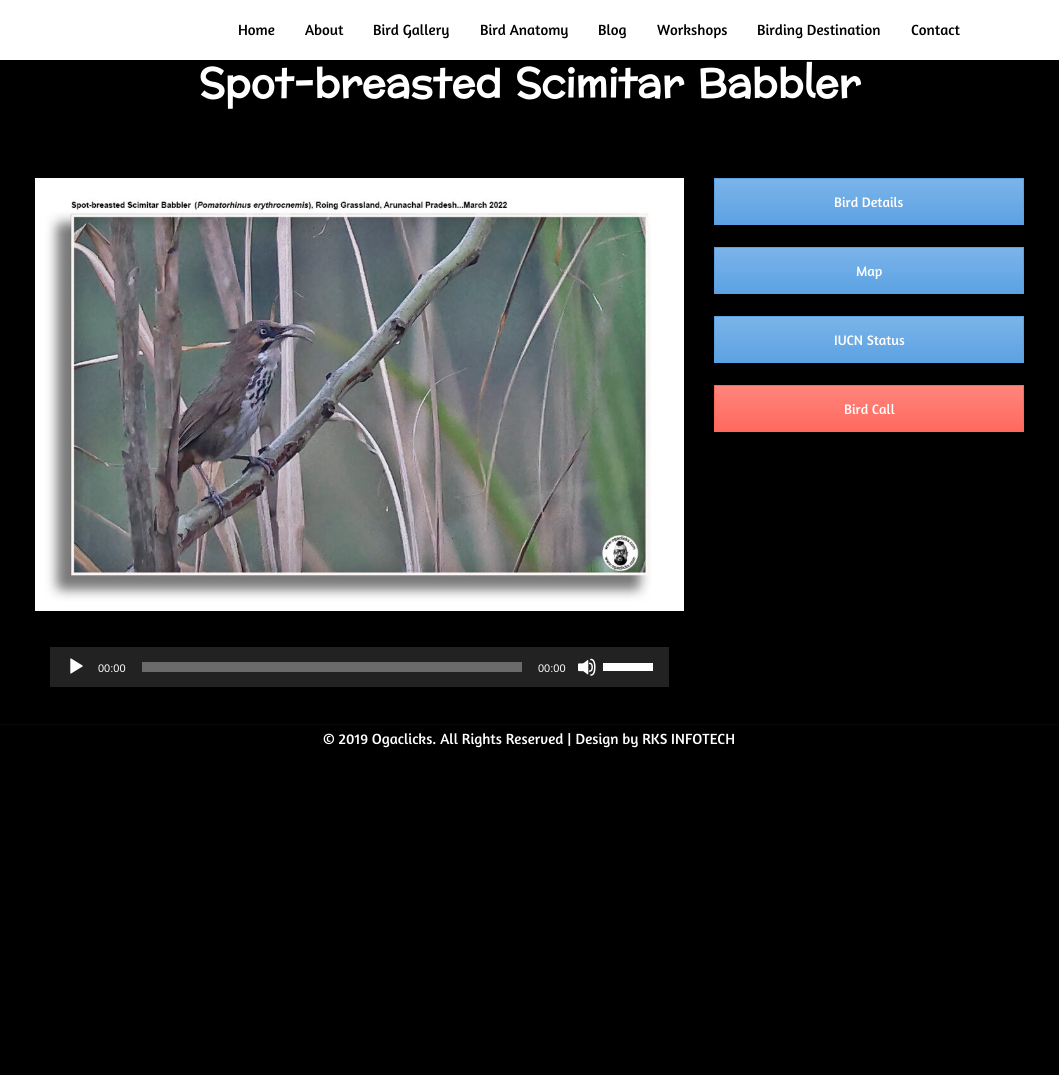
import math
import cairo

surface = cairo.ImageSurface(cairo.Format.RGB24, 1059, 1075)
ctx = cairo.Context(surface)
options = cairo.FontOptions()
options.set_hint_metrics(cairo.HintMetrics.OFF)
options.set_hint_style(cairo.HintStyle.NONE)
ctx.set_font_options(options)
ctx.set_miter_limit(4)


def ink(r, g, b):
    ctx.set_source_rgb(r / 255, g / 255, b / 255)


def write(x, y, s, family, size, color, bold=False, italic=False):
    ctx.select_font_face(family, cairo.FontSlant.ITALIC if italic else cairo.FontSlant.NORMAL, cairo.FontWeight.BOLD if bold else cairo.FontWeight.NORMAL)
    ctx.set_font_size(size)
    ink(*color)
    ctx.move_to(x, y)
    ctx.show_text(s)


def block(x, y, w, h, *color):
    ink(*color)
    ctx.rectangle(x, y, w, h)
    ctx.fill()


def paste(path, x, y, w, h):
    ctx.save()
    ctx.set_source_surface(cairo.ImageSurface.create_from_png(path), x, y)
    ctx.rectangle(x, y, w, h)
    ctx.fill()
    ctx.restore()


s1 = dict(family="Amaranth", size=15, color=(0, 0, 0))
s2 = dict(family="Preahvihear", size=40, color=(255, 255, 255), bold=True)
s3 = dict(family="Amaranth", size=14, color=(255, 255, 255))
s4 = dict(family="Liberation Sans", size=11, color=(255, 255, 255))
s5 = dict(family="Amaranth", size=15, color=(255, 255, 255))

ink(0, 0, 0)
ctx.paint()
block(0, 0, 1059, 60, 255, 255, 255)
write(238, 35, "Home", **s1)
write(305, 35, "About", **s1)
write(373, 35, "Bird Gallery", **s1)
write(480, 35, "Bird Anatomy", **s1)
write(598, 35, "Blog", **s1)
write(657, 35, "Workshops", **s1)
write(757, 35, "Birding Destination", **s1)
write(911, 35, "Contact", **s1)
write(199, 97, "Spot-breasted Scimitar Babbler", **s2)
gradient = cairo.LinearGradient(869, 179, 869, 224)
gradient.add_color_stop_rgba(0, 0.482, 0.706, 0.914, 1)
gradient.add_color_stop_rgba(1, 0.361, 0.635, 0.89, 1)
ctx.set_source(gradient)
ctx.rectangle(715, 179, 308, 45)
ctx.fill()
ctx.rectangle(714.5, 178.5, 309, 46)
ink(90, 161, 227)
ctx.set_line_width(1)
ctx.stroke()
write(834, 207, "Bird Details", **s3)
gradient = cairo.LinearGradient(869, 248, 869, 293)
gradient.add_color_stop_rgba(0, 0.482, 0.706, 0.914, 1)
gradient.add_color_stop_rgba(1, 0.361, 0.635, 0.89, 1)
ctx.set_source(gradient)
ctx.rectangle(715, 248, 308, 45)
ctx.fill()
ctx.rectangle(714.5, 247.5, 309, 46)
ink(90, 161, 227)
ctx.stroke()
write(856, 276, "Map", **s3)
gradient = cairo.LinearGradient(869, 317, 869, 362)
gradient.add_color_stop_rgba(0, 0.482, 0.706, 0.914, 1)
gradient.add_color_stop_rgba(1, 0.361, 0.635, 0.89, 1)
ctx.set_source(gradient)
ctx.rectangle(715, 317, 308, 45)
ctx.fill()
ctx.rectangle(714.5, 316.5, 309, 46)
ink(90, 161, 227)
ctx.stroke()
write(834, 345, "IUCN Status", **s3)
gradient = cairo.LinearGradient(869, 386, 869, 431)
gradient.add_color_stop_rgba(0, 1, 0.522, 0.486, 1)
gradient.add_color_stop_rgba(1, 1, 0.412, 0.365, 1)
ctx.set_source(gradient)
ctx.rectangle(715, 386, 308, 45)
ctx.fill()
ctx.rectangle(714.5, 385.5, 309, 46)
ink(255, 103, 91)
ctx.stroke()
write(844, 414, "Bird Call", **s3)
paste("pic1.png", 35, 178, 649, 433)
block(50, 647, 619, 40, 34, 34, 34)
paste("pic2.png", 70, 658, 13, 16)
write(98, 672, "00:00", **s4)
block(142, 662, 380, 10, 107, 107, 107)
write(538, 672, "00:00", **s4)
paste("pic3.png", 578, 658, 18, 18)
block(603, 663, 50, 8, 255, 255, 255)
block(0, 724, 1059, 1, 10, 10, 10)
write(323, 744, "© 2019 Ogaclicks. All Rights Reserved | Design by RKS INFOTECH", **s5)
surface.write_to_png("screenshot.png")
